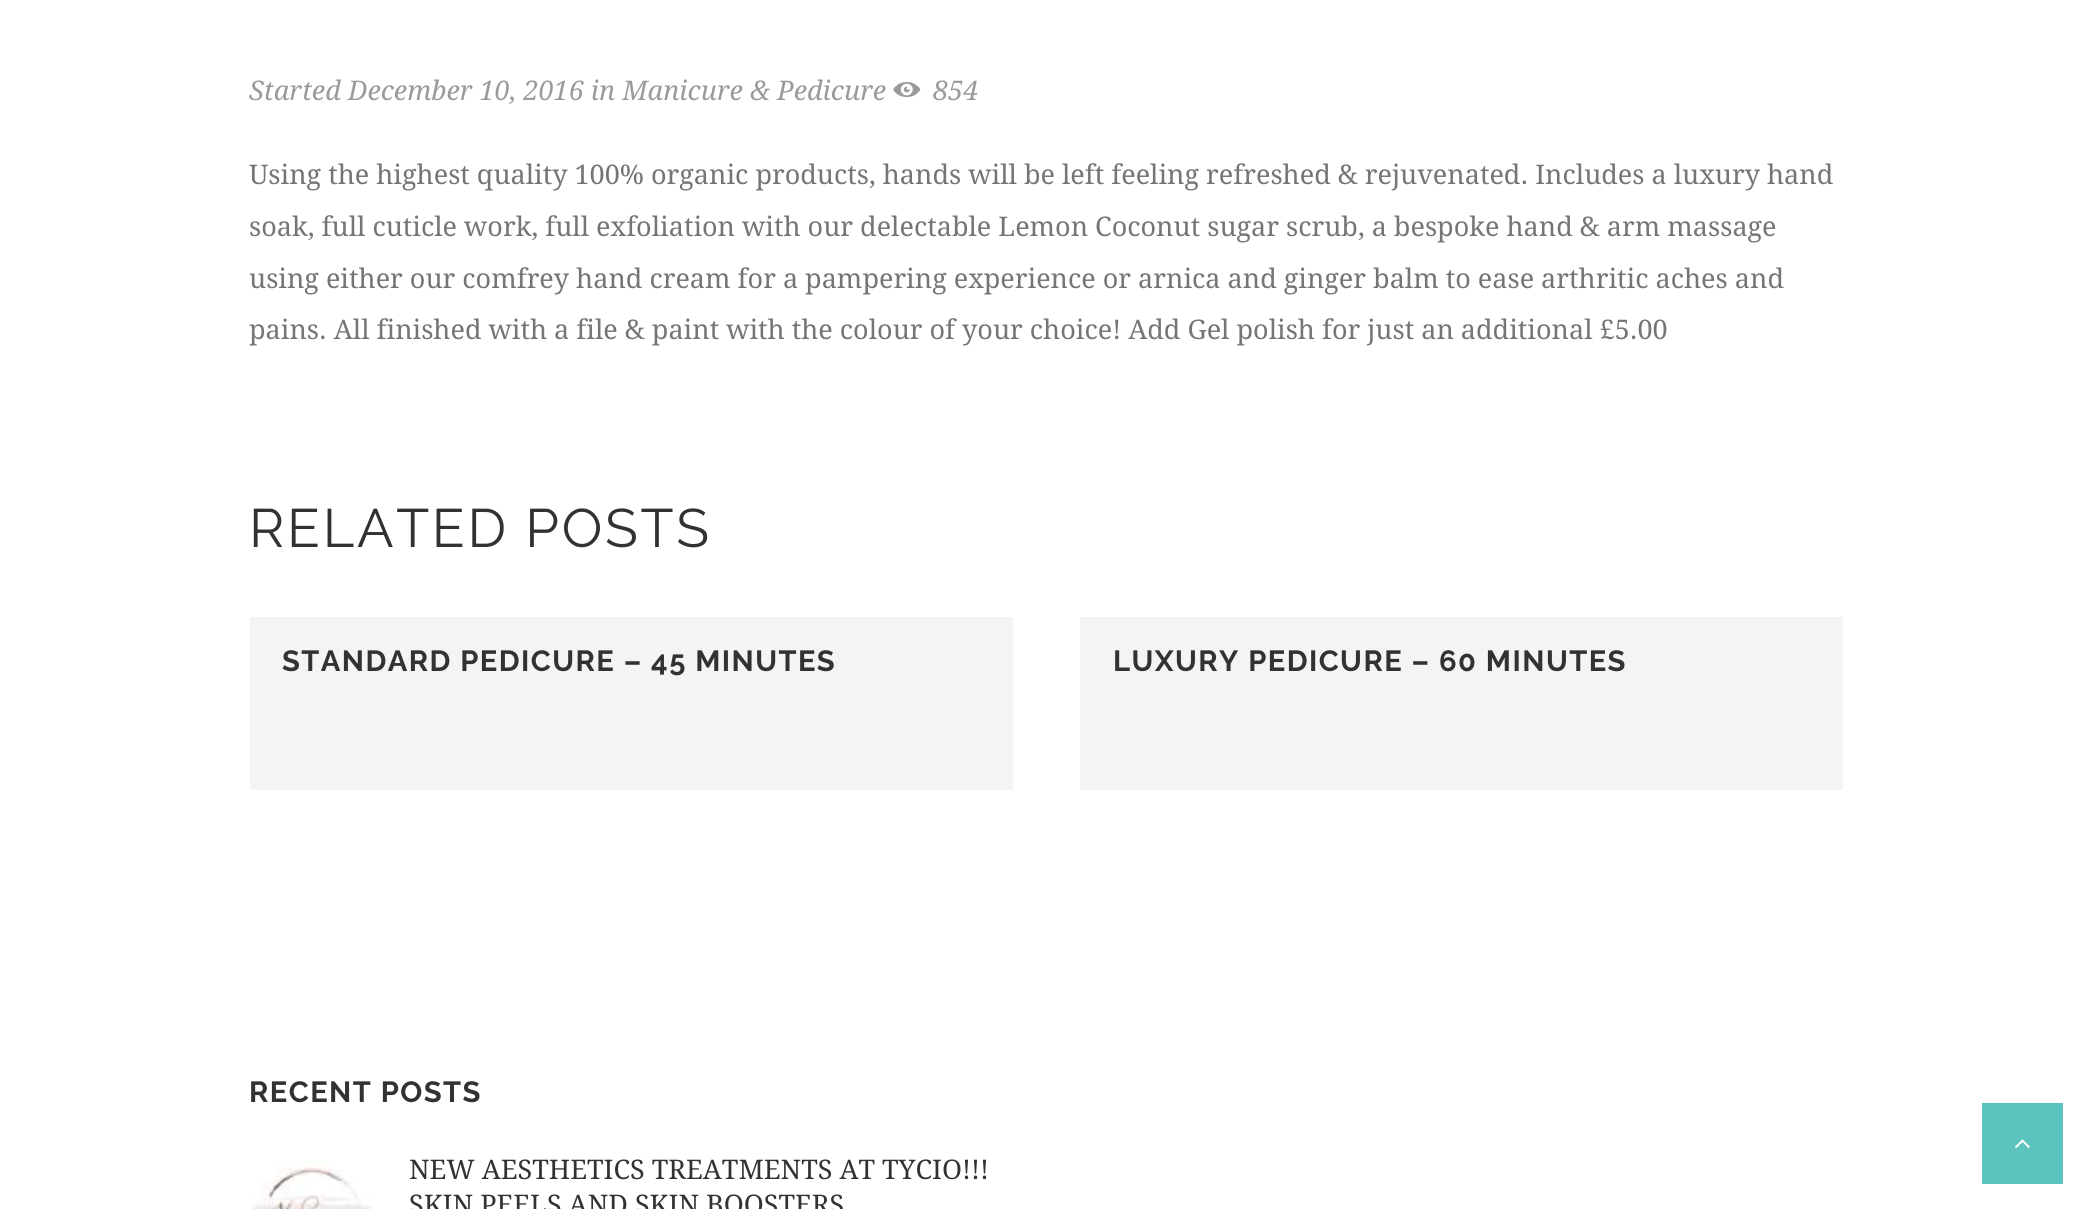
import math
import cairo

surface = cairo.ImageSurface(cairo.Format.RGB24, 2089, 1209)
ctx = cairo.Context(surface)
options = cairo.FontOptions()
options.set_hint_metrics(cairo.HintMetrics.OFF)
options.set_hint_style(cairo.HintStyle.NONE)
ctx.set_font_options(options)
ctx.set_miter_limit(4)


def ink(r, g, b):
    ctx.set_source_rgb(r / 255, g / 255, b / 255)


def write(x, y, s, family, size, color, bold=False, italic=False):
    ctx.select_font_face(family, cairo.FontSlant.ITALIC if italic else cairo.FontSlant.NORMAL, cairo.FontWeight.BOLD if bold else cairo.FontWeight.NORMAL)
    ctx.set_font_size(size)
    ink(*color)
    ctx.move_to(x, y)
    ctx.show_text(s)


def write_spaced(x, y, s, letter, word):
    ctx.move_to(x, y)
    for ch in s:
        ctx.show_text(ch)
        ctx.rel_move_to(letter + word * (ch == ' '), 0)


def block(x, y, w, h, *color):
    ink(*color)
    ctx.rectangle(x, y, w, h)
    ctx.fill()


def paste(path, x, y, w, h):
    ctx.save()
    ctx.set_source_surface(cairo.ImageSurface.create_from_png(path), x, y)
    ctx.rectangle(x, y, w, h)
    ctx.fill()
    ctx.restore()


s1 = dict(family="Droid Serif", size=27, color=(154, 154, 154), italic=True)
s2 = dict(family="Droid Serif", size=27, color=(117, 117, 117))
s3 = dict(family="Droid Serif", size=27, color=(50, 50, 50))

ink(255, 255, 255)
ctx.paint()
write(249, 100, "Started December 10, 2016 in Manicure & Pedicure", **s1)
paste("pic1.png", 893, 82, 28, 16)
write(933, 100, "854", **s1)
write(249, 184, "Using the highest quality 100% organic products, hands will be left feeling refreshed & rejuvenated. Includes a luxury hand", **s2)
write(249, 236, "soak, full cuticle work, full exfoliation with our delectable Lemon Coconut sugar scrub, a bespoke hand & arm massage", **s2)
write(249, 288, "using either our comfrey hand cream for a pampering experience or arnica and ginger balm to ease arthritic aches and", **s2)
write(249, 339, "pains. All finished with a file & paint with the colour of your choice! Add Gel polish for just an additional £5.00", **s2)
ctx.select_font_face("Raleway")
ctx.set_font_size(54)
ink(50, 50, 50)
write_spaced(249, 547, "RELATED POSTS", 2.75, 0)
block(250, 617, 763, 173, 244, 244, 244)
ctx.select_font_face("Raleway", cairo.FontSlant.NORMAL, cairo.FontWeight.BOLD)
ctx.set_font_size(29.1)
ink(50, 50, 50)
write_spaced(282, 671, "STANDARD PEDICURE – 45 MINUTES", 1.45, 0)
block(1080, 617, 763, 173, 244, 244, 244)
ink(50, 50, 50)
write_spaced(1113, 671, "LUXURY PEDICURE – 60 MINUTES", 1.45, 0)
write_spaced(249, 1102, "RECENT POSTS", 1.45, 0)
paste("pic2.png", 252, 1160, 121, 49)
write(409, 1179, "NEW AESTHETICS TREATMENTS AT TYCIO!!!", **s3)
write(409, 1214, "SKIN PEELS AND SKIN BOOSTERS", **s3)
block(1982, 1103, 81, 81, 91, 196, 191)
paste("pic3.png", 2015, 1139, 15, 10)
surface.write_to_png("screenshot.png")
